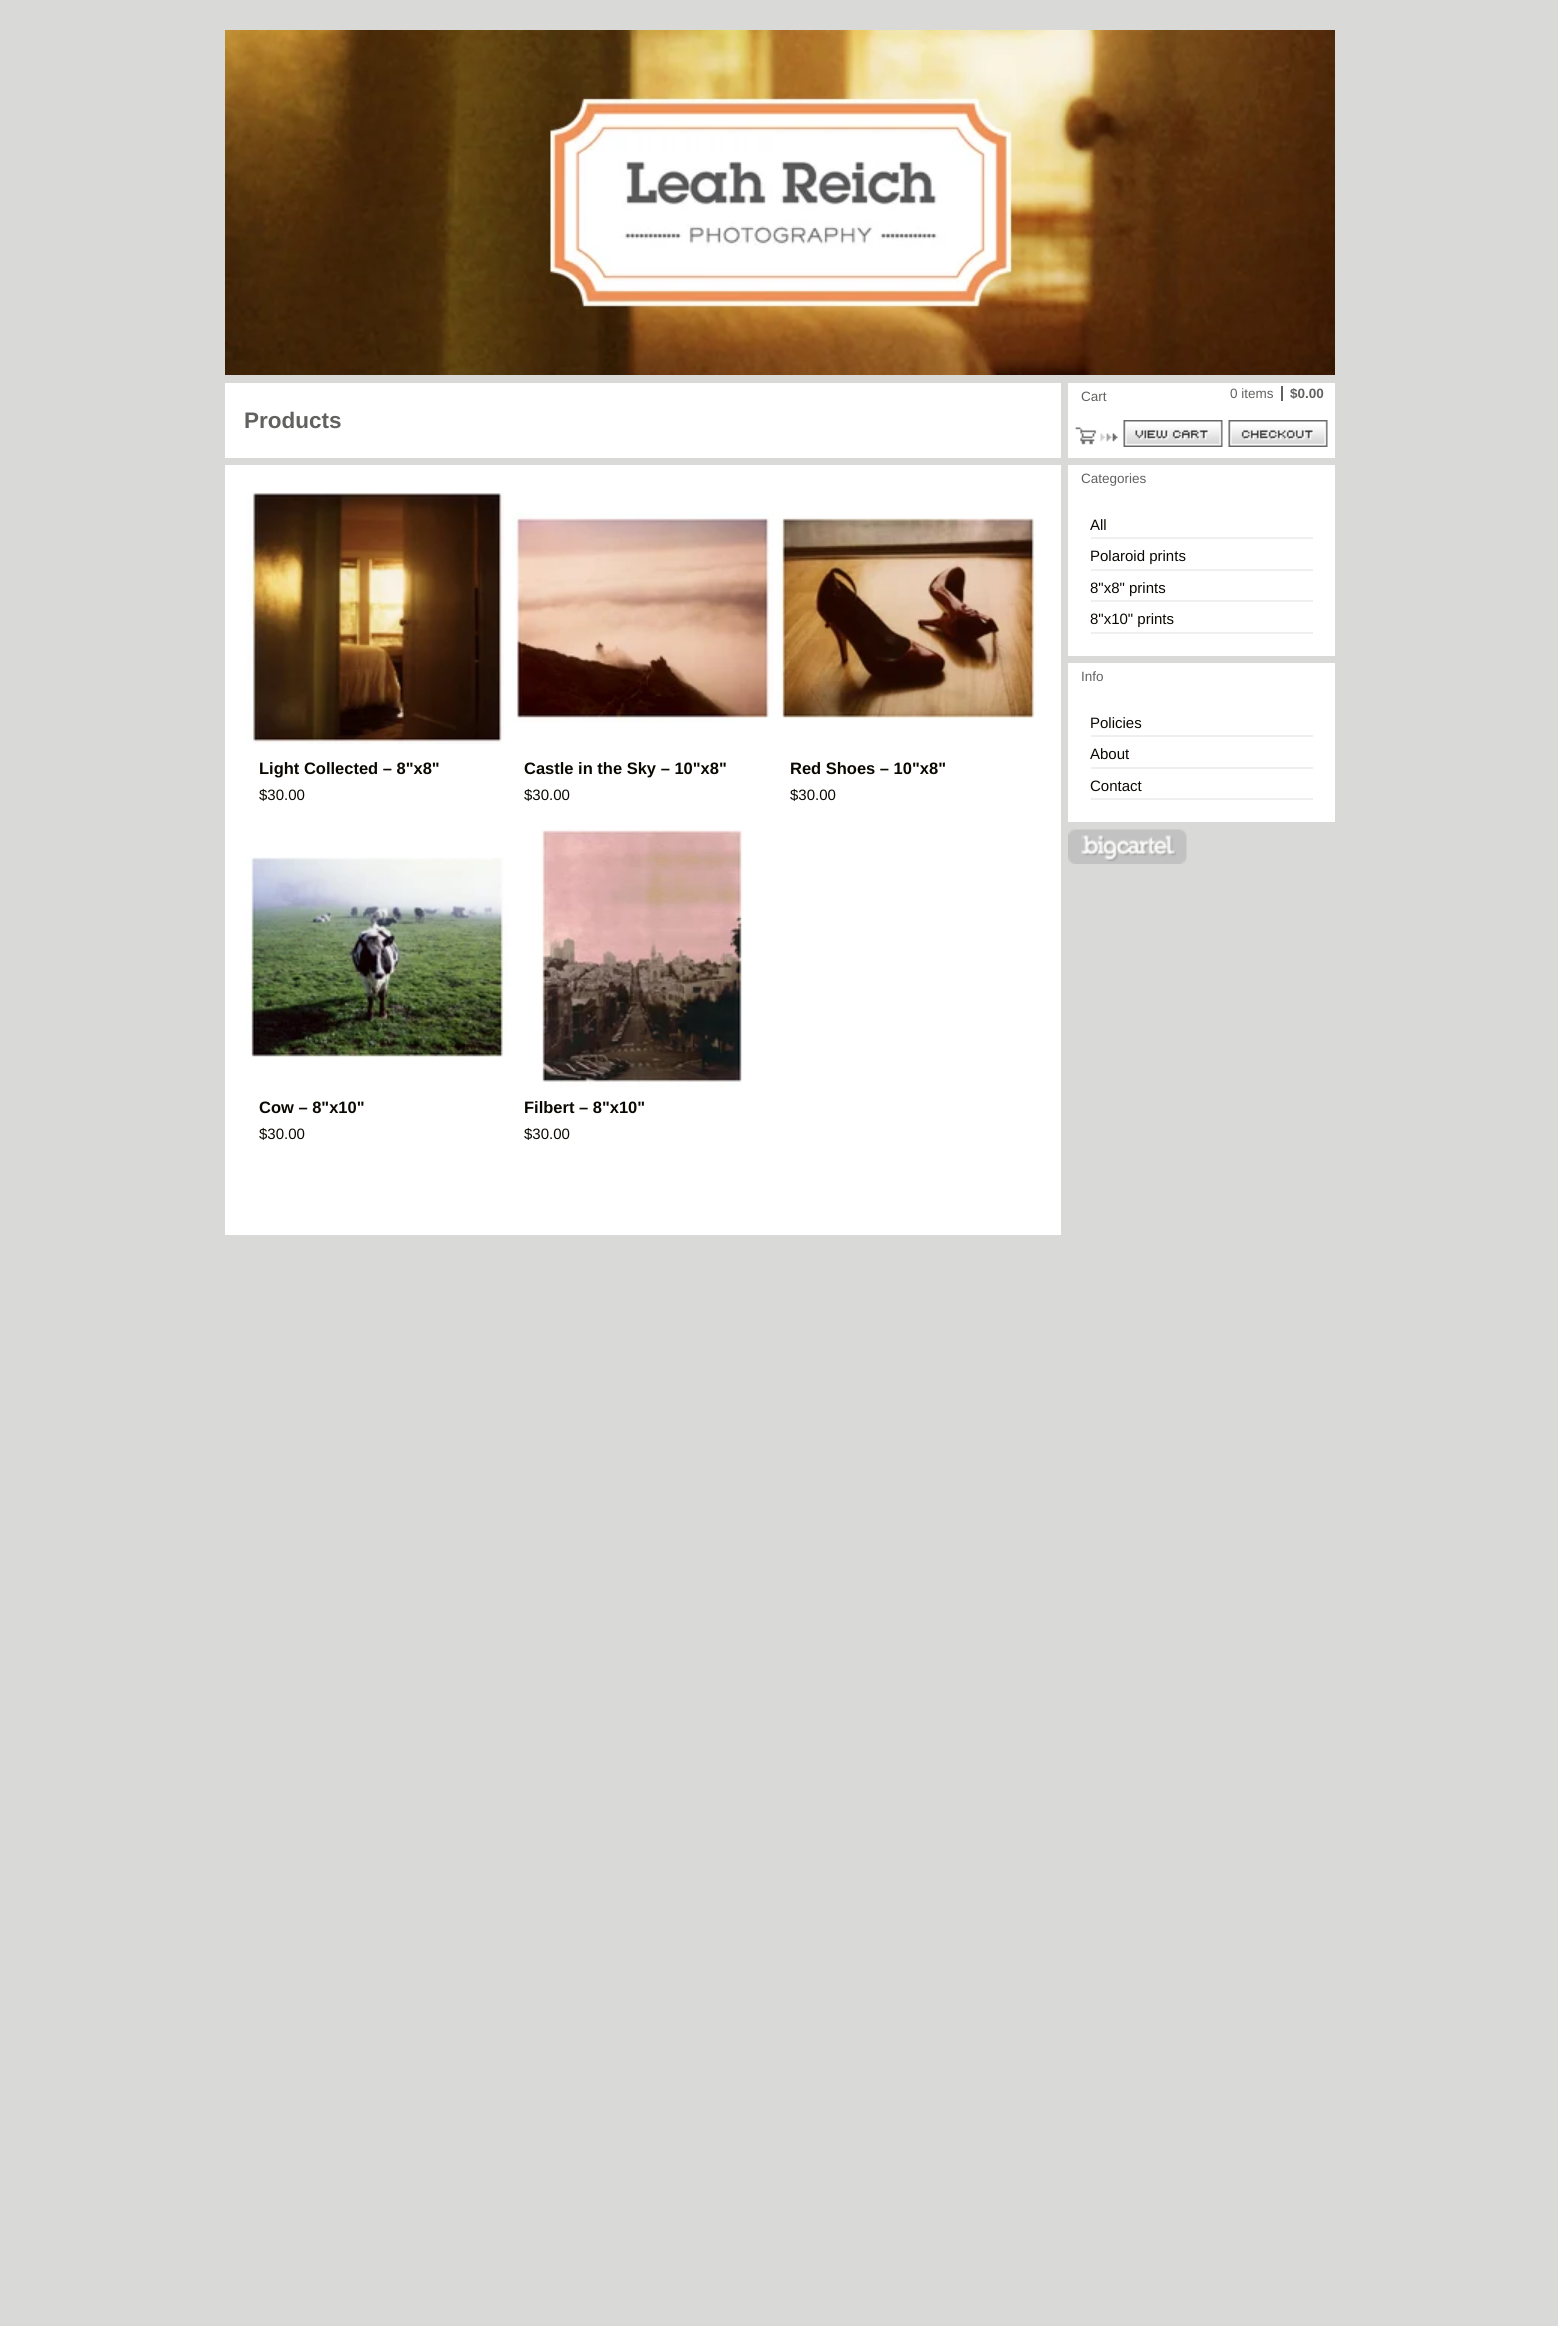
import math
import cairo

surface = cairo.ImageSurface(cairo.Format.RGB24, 1558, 2326)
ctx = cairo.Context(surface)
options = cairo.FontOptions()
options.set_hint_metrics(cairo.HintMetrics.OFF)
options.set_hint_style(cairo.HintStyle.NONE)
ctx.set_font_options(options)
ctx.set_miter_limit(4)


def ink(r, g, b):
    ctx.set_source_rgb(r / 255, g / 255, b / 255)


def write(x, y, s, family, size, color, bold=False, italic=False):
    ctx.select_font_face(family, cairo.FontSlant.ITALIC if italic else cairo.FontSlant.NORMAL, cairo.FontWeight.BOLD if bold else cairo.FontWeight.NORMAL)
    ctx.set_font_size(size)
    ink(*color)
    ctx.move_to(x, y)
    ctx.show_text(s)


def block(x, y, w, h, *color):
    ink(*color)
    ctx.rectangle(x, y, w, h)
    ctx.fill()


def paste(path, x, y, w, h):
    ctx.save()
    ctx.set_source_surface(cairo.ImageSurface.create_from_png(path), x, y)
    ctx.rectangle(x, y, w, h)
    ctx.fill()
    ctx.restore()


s1 = dict(family="Liberation Sans", size=22.5, color=(97, 97, 96), bold=True)
s2 = dict(family="Liberation Sans", size=16.5, color=(10, 8, 1), bold=True)
s3 = dict(family="Liberation Sans", size=15, color=(10, 8, 1))
s4 = dict(family="Liberation Sans", size=13.5, color=(97, 97, 96))
s5 = dict(family="Liberation Sans", size=13.5, color=(97, 97, 96), bold=True)

ink(217, 217, 216)
ctx.paint()
paste("pic1.png", 225, 30, 1110, 345)
block(225, 383, 836, 75, 255, 255, 255)
write(244, 428, "Products", **s1)
block(225, 465, 836, 770, 255, 255, 255)
paste("pic2.png", 246, 492, 258, 252)
write(259, 774, "Light Collected – 8\"x8\"", **s2)
write(259, 800, "$30.00", **s3)
paste("pic3.png", 512, 513, 262, 210)
write(524, 774, "Castle in the Sky – 10\"x8\"", **s2)
write(524, 800, "$30.00", **s3)
paste("pic4.png", 777, 517, 259, 202)
write(790, 774, "Red Shoes – 10\"x8\"", **s2)
write(790, 800, "$30.00", **s3)
paste("pic5.png", 246, 857, 262, 201)
write(259, 1113, "Cow – 8\"x10\"", **s2)
write(259, 1139, "$30.00", **s3)
paste("pic6.png", 540, 829, 203, 258)
write(524, 1113, "Filbert – 8\"x10\"", **s2)
write(524, 1139, "$30.00", **s3)
block(1068, 383, 267, 75, 255, 255, 255)
paste("pic7.png", 1075, 427, 43, 18)
write(1081, 401, "Cart", **s4)
write(1230, 398, "0 items", **s4)
block(1281, 386, 2, 15, 97, 97, 96)
write(1290, 398, "$0.00", **s5)
paste("pic8.png", 1123, 420, 100, 27)
paste("pic9.png", 1228, 420, 100, 27)
block(1068, 465, 267, 191, 255, 255, 255)
write(1081, 483, "Categories", **s4)
block(1091, 537, 222, 2, 239, 239, 239)
write(1090, 530, "All", **s3)
block(1091, 569, 222, 2, 239, 239, 239)
write(1090, 561, "Polaroid prints", **s3)
block(1091, 600, 222, 2, 239, 239, 239)
write(1090, 593, "8\"x8\" prints", **s3)
block(1091, 632, 222, 2, 239, 239, 239)
write(1090, 624, "8\"x10\" prints", **s3)
block(1068, 663, 267, 159, 255, 255, 255)
write(1081, 681, "Info", **s4)
block(1091, 735, 222, 2, 239, 239, 239)
write(1090, 728, "Policies", **s3)
block(1091, 767, 222, 2, 239, 239, 239)
write(1090, 759, "About", **s3)
block(1091, 798, 222, 2, 239, 239, 239)
write(1090, 791, "Contact", **s3)
paste("pic10.png", 1068, 829, 119, 35)
surface.write_to_png("screenshot.png")
